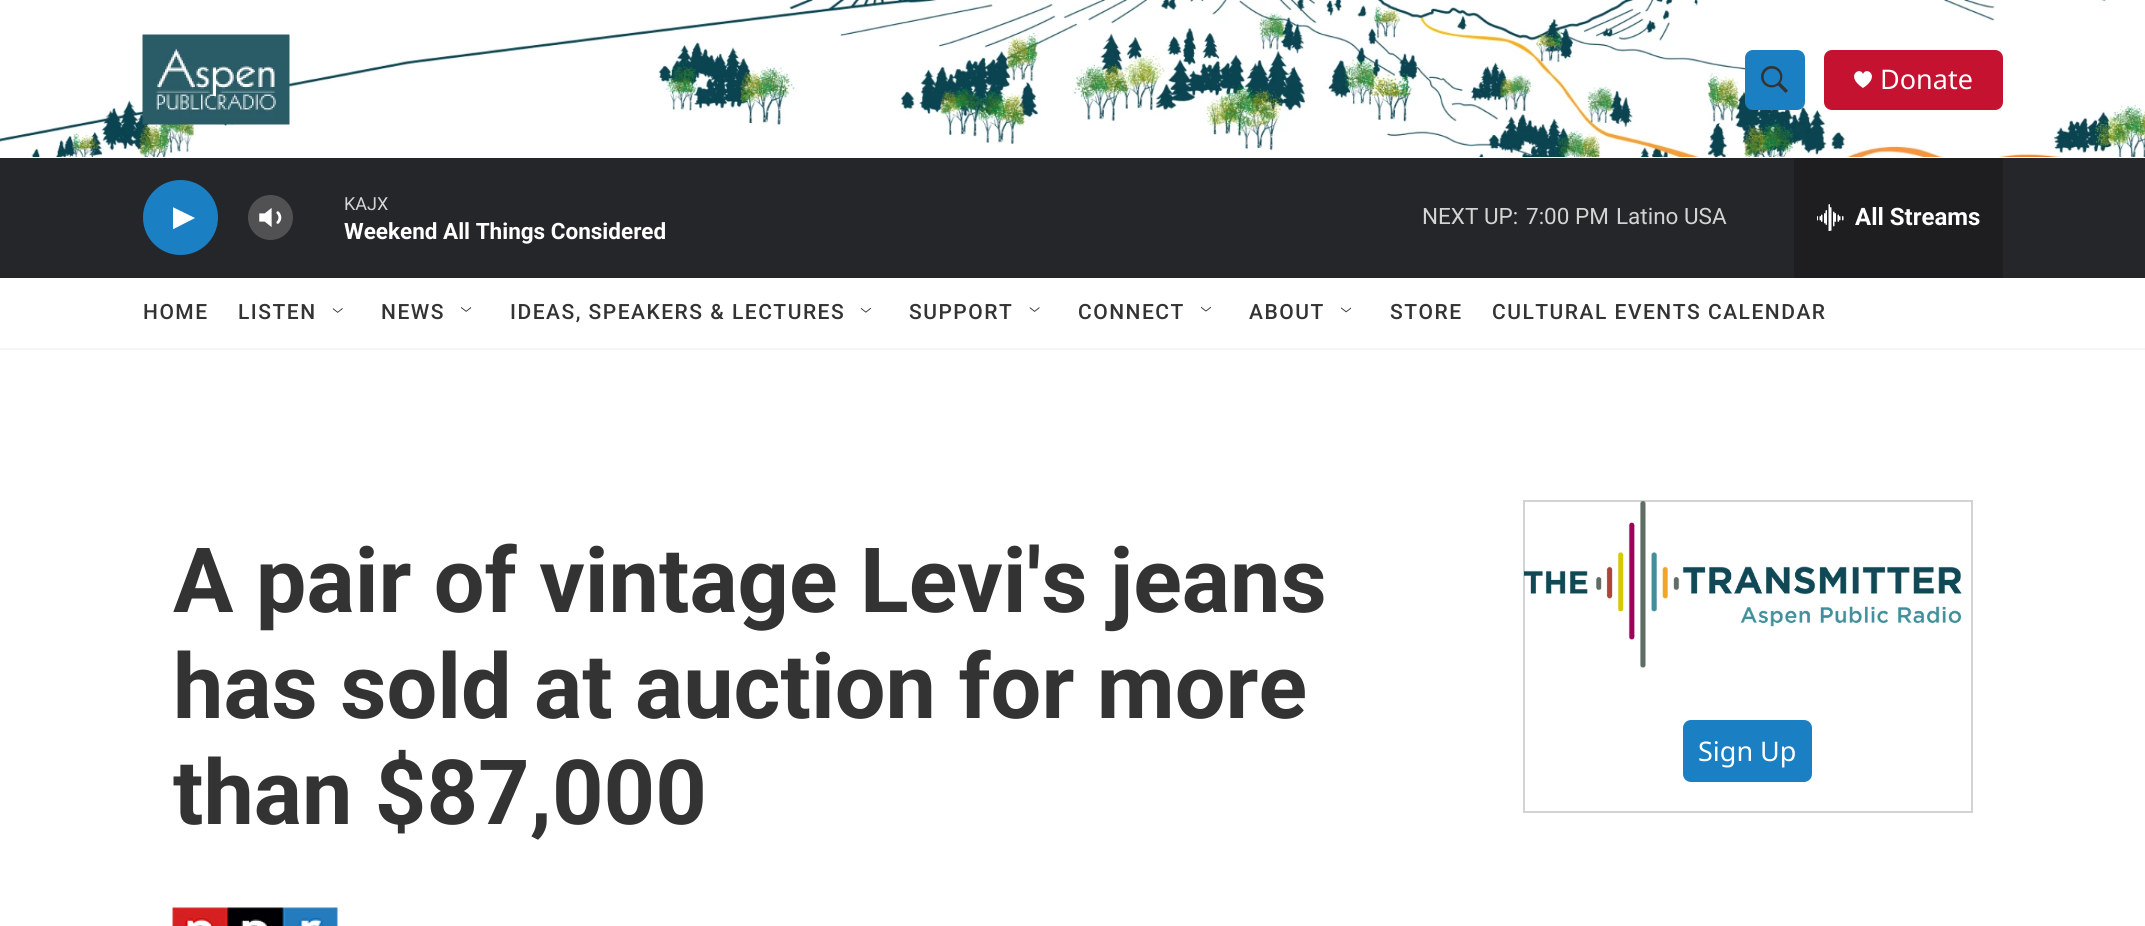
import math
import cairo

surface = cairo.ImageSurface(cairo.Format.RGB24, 2145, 926)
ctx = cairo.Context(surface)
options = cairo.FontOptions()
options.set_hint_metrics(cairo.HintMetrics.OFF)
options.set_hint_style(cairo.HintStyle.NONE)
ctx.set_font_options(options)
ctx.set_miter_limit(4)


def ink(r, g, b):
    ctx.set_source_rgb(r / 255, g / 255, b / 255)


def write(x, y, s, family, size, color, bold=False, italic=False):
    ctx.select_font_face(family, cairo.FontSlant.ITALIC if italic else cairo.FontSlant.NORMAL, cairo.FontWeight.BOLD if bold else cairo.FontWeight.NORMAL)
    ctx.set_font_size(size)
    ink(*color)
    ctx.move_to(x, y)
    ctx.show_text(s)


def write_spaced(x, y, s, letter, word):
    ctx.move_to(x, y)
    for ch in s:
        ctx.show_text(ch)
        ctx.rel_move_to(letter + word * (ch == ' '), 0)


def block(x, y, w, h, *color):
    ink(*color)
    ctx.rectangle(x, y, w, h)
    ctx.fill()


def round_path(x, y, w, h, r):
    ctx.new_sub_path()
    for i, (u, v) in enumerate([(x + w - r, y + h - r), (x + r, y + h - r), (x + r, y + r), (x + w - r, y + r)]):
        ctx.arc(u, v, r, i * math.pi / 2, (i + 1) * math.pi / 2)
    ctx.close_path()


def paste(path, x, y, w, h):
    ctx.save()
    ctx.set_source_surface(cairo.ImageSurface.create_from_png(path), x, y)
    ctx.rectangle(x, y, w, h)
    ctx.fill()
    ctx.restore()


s1 = dict(family="Noto Sans", size=27, color=(255, 255, 255))
s2 = dict(family="Roboto", size=18, color=(211, 212, 212))
s3 = dict(family="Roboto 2", size=22.5, color=(255, 255, 255), bold=True)
s4 = dict(family="Roboto", size=22.5, color=(211, 212, 212))
s5 = dict(family="Roboto 2", size=24, color=(255, 255, 255), bold=True)
s6 = dict(family="Roboto", size=90, color=(51, 51, 51), bold=True)

ink(255, 255, 255)
ctx.paint()
block(0, 348, 2145, 2, 245, 245, 245)
paste("pic1.png", 0, 0, 2145, 157)
paste("pic2.png", 142, 34, 148, 91)
ink(26, 127, 195)
round_path(1745, 50, 60, 60, 8)
ctx.fill()
paste("pic3.png", 1761, 66, 27, 27)
ink(196, 18, 48)
round_path(1824, 50, 179, 60, 8)
ctx.fill()
ink(255, 255, 255)
ctx.new_path()
ctx.move_to(1863, 74)
ctx.curve_to(1860, 66, 1844.5, 76, 1863, 88)
ctx.curve_to(1881.5, 76, 1866, 66, 1863, 74)
ctx.close_path()
ctx.fill()
write(1880, 89, "Donate", **s1)
block(0, 158, 2145, 120, 37, 38, 41)
ink(26, 127, 195)
ctx.new_path()
ctx.arc(180.5, 217.5, 37.5, 0, 2 * math.pi)
ctx.fill()
ctx.save()
ctx.rectangle(173, 204, 22, 29)
ctx.clip()
ink(255, 255, 255)
ctx.new_path()
ctx.move_to(172.5, 207)
ctx.line_to(195, 218)
ctx.line_to(172.5, 229.5)
ctx.close_path()
ctx.fill()
ctx.restore()
paste("pic4.png", 259, 208, 23, 19)
ctx.set_source_rgba(1, 1, 1, 0.2)
ctx.arc(270.5, 217.5, 22.5, 0, 2 * math.pi)
ctx.fill()
write(344, 210, "KAJX", **s2)
write(344, 239, "Weekend All Things Considered", **s3)
write(1422, 224, "NEXT UP:", **s4)
write(1526, 224, "7:00 PM", **s4)
write(1616, 224, "Latino USA", **s4)
block(1794, 158, 209, 120, 30, 30, 33)
paste("pic5.png", 1817, 204, 27, 27)
write(1855, 225, "All Streams", **s5)
ctx.select_font_face("Roboto Medium")
ctx.set_font_size(21)
ink(51, 51, 51)
write_spaced(143, 319, "HOME", 1.5, 0)
write_spaced(238, 319, "LISTEN", 1.5, 0)
paste("pic6.png", 332, 308, 11, 5)
write_spaced(381, 319, "NEWS", 1.5, 0)
paste("pic7.png", 461, 307, 11, 5)
write_spaced(510, 319, "IDEAS, SPEAKERS & LECTURES", 1.5, 0)
paste("pic8.png", 860, 307, 11, 6)
write_spaced(909, 319, "SUPPORT", 1.5, 0)
paste("pic9.png", 1029, 307, 11, 5)
write_spaced(1078, 319, "CONNECT", 1.5, 0)
paste("pic10.png", 1201, 306, 10, 6)
write_spaced(1249, 319, "ABOUT", 1.5, 0)
paste("pic11.png", 1341, 307, 11, 6)
write_spaced(1390, 319, "STORE", 1.5, 0)
write_spaced(1492, 319, "CULTURAL EVENTS CALENDAR", 1.5, 0)
write(173, 612, "A pair of vintage Levi's jeans", **s6)
write(173, 718, "has sold at auction for more", **s6)
write(173, 824, "than $87,000", **s6)
paste("pic12.png", 172, 907, 166, 19)
ctx.rectangle(1524, 501, 448, 311)
ink(211, 211, 211)
ctx.stroke()
paste("pic13.png", 1524, 501, 438, 167)
ink(26, 127, 195)
round_path(1683, 720, 129, 62, 8)
ctx.fill()
write(1698, 761, "Sign Up", **s1)
surface.write_to_png("screenshot.png")
